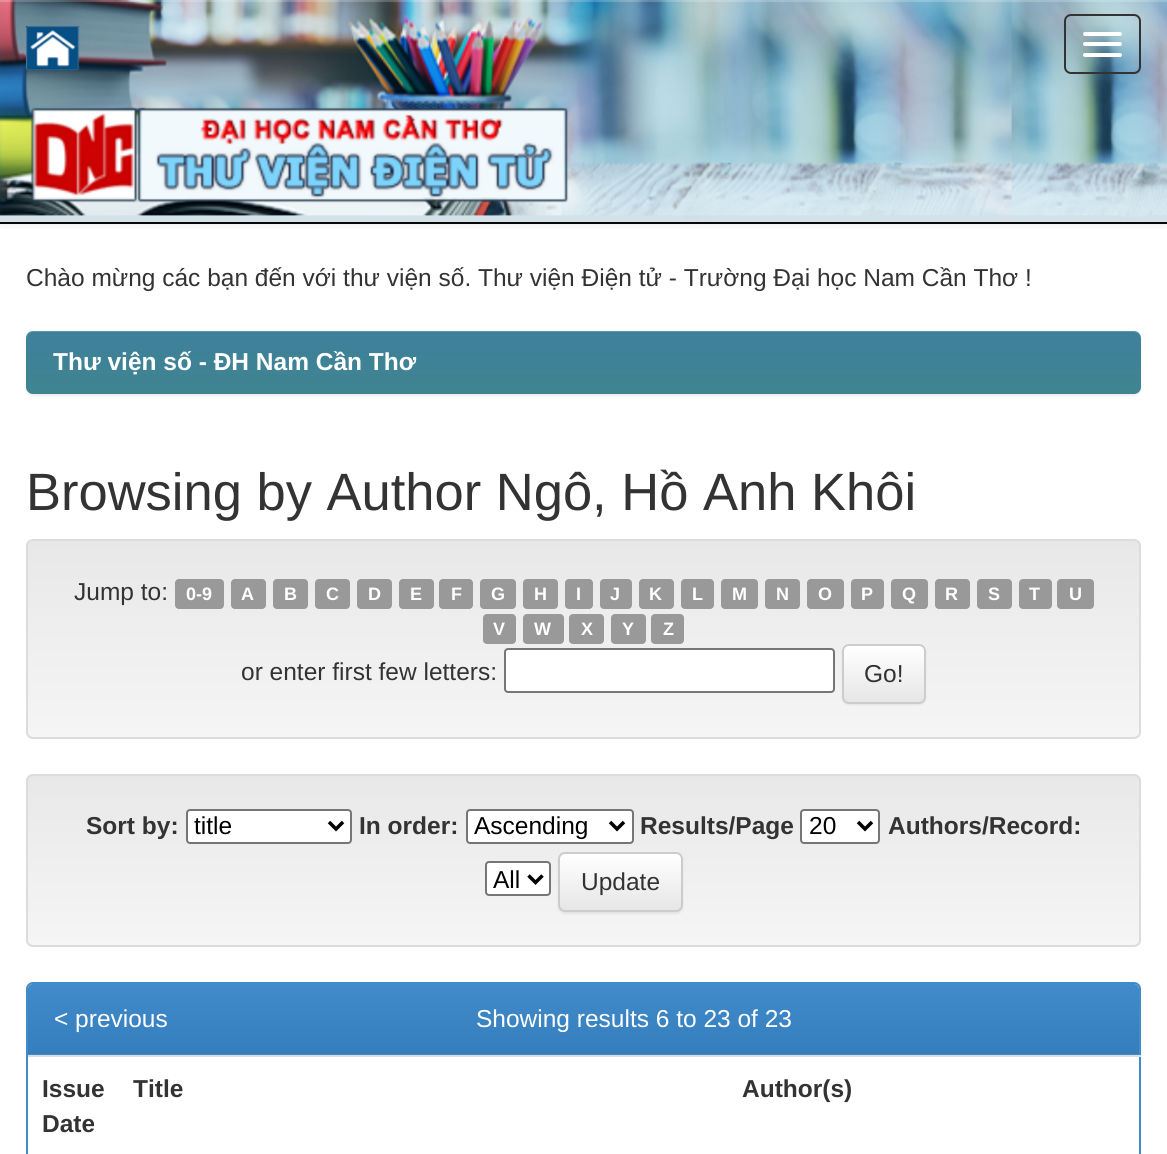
import math
import cairo

surface = cairo.ImageSurface(cairo.Format.RGB24, 1167, 1154)
ctx = cairo.Context(surface)
options = cairo.FontOptions()
options.set_hint_metrics(cairo.HintMetrics.OFF)
options.set_hint_style(cairo.HintStyle.NONE)
ctx.set_font_options(options)
ctx.set_miter_limit(4)


def ink(r, g, b):
    ctx.set_source_rgb(r / 255, g / 255, b / 255)


def write(x, y, s, family, size, color, bold=False, italic=False):
    ctx.select_font_face(family, cairo.FontSlant.ITALIC if italic else cairo.FontSlant.NORMAL, cairo.FontWeight.BOLD if bold else cairo.FontWeight.NORMAL)
    ctx.set_font_size(size)
    ink(*color)
    ctx.move_to(x, y)
    ctx.show_text(s)


def block(x, y, w, h, *color):
    ink(*color)
    ctx.rectangle(x, y, w, h)
    ctx.fill()


def round_path(x, y, w, h, r):
    ctx.new_sub_path()
    for i, (u, v) in enumerate([(x + w - r, y + h - r), (x + r, y + h - r), (x + r, y + r), (x + w - r, y + r)]):
        ctx.arc(u, v, r, i * math.pi / 2, (i + 1) * math.pi / 2)
    ctx.close_path()


def blur_box(x, y, w, h, r, blur, alpha):
    ctx.push_group_with_content(cairo.Content.ALPHA)
    ctx.set_operator(cairo.Operator.SOURCE)
    for i in range(15, -16, -2):
        e = blur * i / 6
        if min(w, h) + 2 * e > 0:
            ctx.set_source_rgba(0, 0, 0, alpha * math.erfc((i - 1) / 8.5) / 2)
            round_path(x - e, y - e, w + 2 * e, h + 2 * e, max(0, min(r + e + blur * .6, min(w, h) / 2 + e)))
            ctx.fill()
    ctx.mask(ctx.pop_group())


def paste(path, x, y, w, h):
    ctx.save()
    ctx.set_source_surface(cairo.ImageSurface.create_from_png(path), x, y)
    ctx.rectangle(x, y, w, h)
    ctx.fill()
    ctx.restore()


s1 = dict(family="Liberation Sans", size=24.5, color=(51, 51, 51))
s2 = dict(family="Liberation Sans", size=24.5, color=(255, 255, 255), bold=True)
s3 = dict(family="Liberation Sans", size=52.5, color=(51, 51, 51))
s4 = dict(family="Liberation Sans", size=18, color=(255, 255, 255), bold=True)
s5 = dict(family="Liberation Sans", size=24.5, color=(51, 51, 51), bold=True)
s6 = dict(family="Liberation Sans", size=24.5, color=(0, 0, 0))
s7 = dict(family="Liberation Sans", size=24.5, color=(255, 255, 255))

ink(255, 255, 255)
ctx.paint()
ctx.save()
ctx.rectangle(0, 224, 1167, 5)
ctx.clip()
ink(0, 0, 0)
blur_box(0, 2, 1167, 224, 0, 4.5, 0.07)
ctx.restore()
paste("pic1.png", 0, 0, 1167, 222)
ctx.set_source_rgba(1, 1, 1, 0.15)
ctx.rectangle(0, 0, 1167, 2)
ctx.fill()
block(0, 222, 1167, 2, 8, 8, 8)
paste("pic2.png", 26, 26, 54, 45)
round_path(1065, 15, 75, 58, 6)
ink(51, 51, 51)
ctx.stroke()
ink(255, 255, 255)
round_path(1083, 32, 39, 4, 2)
ctx.fill()
round_path(1083, 42, 39, 4, 2)
ctx.fill()
round_path(1083, 53, 39, 4, 2)
ctx.fill()
paste("pic3.png", 30, 107, 539, 96)
write(26, 286, "Chào mừng các bạn đến với thư viện số. Thư viện Điện tử - Trường Đại học Nam Cần Thơ !", **s1)
ink(0, 0, 0)
blur_box(26, 333, 1115, 63, 7, 1, 0.07)
gradient = cairo.LinearGradient(584, 331, 584, 394)
gradient.add_color_stop_rgba(0, 0.243, 0.502, 0.608, 1)
gradient.add_color_stop_rgba(1, 0.247, 0.518, 0.565, 1)
ctx.set_source(gradient)
round_path(26, 331, 1115, 63, 7)
ctx.fill()
ctx.set_source_rgba(1, 1, 1, 0.15)
ctx.new_path()
ctx.move_to(33, 332)
ctx.line_to(1134, 332)
ctx.curve_to(1138, 332, 1141, 336, 1141, 340)
ctx.line_to(1141, 338)
ctx.curve_to(1141, 334, 1138, 331, 1134, 331)
ctx.line_to(33, 331)
ctx.curve_to(29, 331, 26, 334, 26, 338)
ctx.line_to(26, 340)
ctx.curve_to(26, 336, 29, 332, 33, 332)
ctx.close_path()
ctx.fill()
write(53, 370, "Thư viện số - ĐH Nam Cần Thơ", **s2)
write(26, 510, "Browsing by Author Ngô, Hồ Anh Khôi", **s3)
ctx.save()
round_path(26, 539, 1115, 200, 7)
ctx.clip()
gradient = cairo.LinearGradient(584, 541, 584, 737)
gradient.add_color_stop_rgba(0, 0.91, 0.91, 0.91, 1)
gradient.add_color_stop_rgba(1, 0.961, 0.961, 0.961, 1)
ctx.set_source(gradient)
ctx.rectangle(26, 541, 1115, 196)
ctx.fill()
ctx.restore()
round_path(27, 540, 1113, 198, 6)
ink(220, 220, 220)
ctx.stroke()
write(74, 600, "Jump to:", **s1)
ink(153, 153, 153)
round_path(175, 579, 49, 30, 4)
ctx.fill()
write(186, 600, "0-9", **s4)
ink(153, 153, 153)
round_path(231, 579, 35, 30, 4)
ctx.fill()
write(241, 600, "A", **s4)
ink(153, 153, 153)
round_path(273, 579, 35, 30, 4)
ctx.fill()
write(284, 600, "B", **s4)
ink(153, 153, 153)
round_path(315, 579, 35, 30, 4)
ctx.fill()
write(326, 600, "C", **s4)
ink(153, 153, 153)
round_path(357, 579, 35, 30, 4)
ctx.fill()
write(368, 600, "D", **s4)
ink(153, 153, 153)
round_path(399, 579, 35, 30, 4)
ctx.fill()
write(410, 600, "E", **s4)
ink(153, 153, 153)
round_path(439, 579, 34, 30, 4)
ctx.fill()
write(451, 600, "F", **s4)
ink(153, 153, 153)
round_path(480, 579, 36, 30, 4)
ctx.fill()
write(491, 600, "G", **s4)
ink(153, 153, 153)
round_path(523, 579, 35, 30, 4)
ctx.fill()
write(534, 600, "H", **s4)
ink(153, 153, 153)
round_path(565, 579, 28, 30, 4)
ctx.fill()
write(576, 600, "I", **s4)
ink(153, 153, 153)
round_path(600, 579, 32, 30, 4)
ctx.fill()
write(610, 600, "J", **s4)
ink(153, 153, 153)
round_path(639, 579, 35, 30, 4)
ctx.fill()
write(649, 600, "K", **s4)
ink(153, 153, 153)
round_path(681, 579, 33, 30, 4)
ctx.fill()
write(692, 600, "L", **s4)
ink(153, 153, 153)
round_path(721, 579, 37, 30, 4)
ctx.fill()
write(732, 600, "M", **s4)
ink(153, 153, 153)
round_path(765, 579, 35, 30, 4)
ctx.fill()
write(776, 600, "N", **s4)
ink(153, 153, 153)
round_path(807, 579, 37, 30, 4)
ctx.fill()
write(818, 600, "O", **s4)
ink(153, 153, 153)
round_path(851, 579, 33, 30, 4)
ctx.fill()
write(861, 600, "P", **s4)
ink(153, 153, 153)
round_path(891, 579, 37, 30, 4)
ctx.fill()
write(902, 600, "Q", **s4)
ink(153, 153, 153)
round_path(935, 579, 35, 30, 4)
ctx.fill()
write(945, 600, "R", **s4)
ink(153, 153, 153)
round_path(977, 579, 35, 30, 4)
ctx.fill()
write(988, 600, "S", **s4)
ink(153, 153, 153)
round_path(1019, 579, 33, 30, 4)
ctx.fill()
write(1029, 600, "T", **s4)
ink(153, 153, 153)
round_path(1057, 579, 37, 30, 4)
ctx.fill()
write(1069, 600, "U", **s4)
ink(153, 153, 153)
round_path(483, 614, 33, 30, 4)
ctx.fill()
write(493, 635, "V", **s4)
ink(153, 153, 153)
round_path(523, 614, 41, 30, 4)
ctx.fill()
write(534, 635, "W", **s4)
ink(153, 153, 153)
round_path(569, 614, 35, 30, 4)
ctx.fill()
write(581, 635, "X", **s4)
ink(153, 153, 153)
round_path(611, 614, 35, 30, 4)
ctx.fill()
write(622, 635, "Y", **s4)
ink(153, 153, 153)
round_path(651, 614, 33, 30, 4)
ctx.fill()
write(663, 635, "Z", **s4)
write(241, 680, "or enter first few letters:", **s1)
ink(255, 255, 255)
round_path(505, 649, 329, 43, 3)
ctx.fill_preserve()
ink(118, 118, 118)
ctx.stroke()
ink(0, 0, 0)
blur_box(842, 646, 84, 59, 7, 1, 0.07)
ctx.save()
round_path(842, 644, 84, 60, 7)
ctx.clip()
gradient = cairo.LinearGradient(884, 646, 884, 702)
gradient.add_color_stop_rgba(0, 1, 1, 1, 1)
gradient.add_color_stop_rgba(1, 0.902, 0.902, 0.902, 1)
ctx.set_source(gradient)
ctx.rectangle(842, 646, 84, 56)
ctx.fill()
ctx.restore()
round_path(843, 645, 82, 58, 6)
ink(204, 204, 204)
ctx.stroke()
write(864, 682, "Go!", **s1)
ctx.save()
round_path(26, 774, 1115, 173, 7)
ctx.clip()
gradient = cairo.LinearGradient(584, 775, 584, 945)
gradient.add_color_stop_rgba(0, 0.91, 0.91, 0.91, 1)
gradient.add_color_stop_rgba(1, 0.961, 0.961, 0.961, 1)
ctx.set_source(gradient)
ctx.rectangle(26, 775, 1115, 170)
ctx.fill()
ctx.restore()
round_path(27, 775, 1113, 171, 6)
ink(220, 220, 220)
ctx.stroke()
write(86, 834, "Sort by:", **s5)
ink(255, 255, 255)
round_path(187, 810, 164, 33, 3)
ctx.fill_preserve()
ink(118, 118, 118)
ctx.stroke()
ctx.new_path()
ctx.move_to(329, 822)
ctx.line_to(336, 829)
ctx.line_to(343, 822)
ink(0, 0, 0)
ctx.set_line_width(3.5)
ctx.stroke()
write(194, 834, "title", **s6)
write(359, 834, "In order:", **s5)
ink(255, 255, 255)
round_path(467, 810, 166, 33, 3)
ctx.fill_preserve()
ink(118, 118, 118)
ctx.set_line_width(2)
ctx.stroke()
ctx.new_path()
ctx.move_to(610, 822)
ctx.line_to(617, 829)
ctx.line_to(624, 822)
ink(0, 0, 0)
ctx.set_line_width(3.5)
ctx.stroke()
write(474, 834, "Ascending", **s6)
write(640, 834, "Results/Page", **s5)
ink(255, 255, 255)
round_path(801, 810, 78, 33, 3)
ctx.fill_preserve()
ink(118, 118, 118)
ctx.set_line_width(2)
ctx.stroke()
ctx.new_path()
ctx.move_to(858, 822)
ctx.line_to(865, 829)
ctx.line_to(872, 822)
ink(0, 0, 0)
ctx.set_line_width(3.5)
ctx.stroke()
write(809, 834, "20", **s6)
write(888, 834, "Authors/Record:", **s5)
ink(255, 255, 255)
round_path(486, 862, 64, 33, 3)
ctx.fill_preserve()
ink(118, 118, 118)
ctx.set_line_width(2)
ctx.stroke()
ctx.new_path()
ctx.move_to(528.5, 875.5)
ctx.line_to(535.5, 882.5)
ctx.line_to(542.5, 875.5)
ink(0, 0, 0)
ctx.set_line_width(3.5)
ctx.stroke()
write(493, 888, "All", **s6)
ink(0, 0, 0)
blur_box(558, 854, 125, 60, 7, 1, 0.07)
ctx.save()
round_path(558, 852, 125, 60, 7)
ctx.clip()
gradient = cairo.LinearGradient(620, 854, 620, 910)
gradient.add_color_stop_rgba(0, 1, 1, 1, 1)
gradient.add_color_stop_rgba(1, 0.902, 0.902, 0.902, 1)
ctx.set_source(gradient)
ctx.rectangle(558, 854, 125, 56)
ctx.fill()
ctx.restore()
round_path(559, 853, 123, 58, 6)
ink(204, 204, 204)
ctx.set_line_width(2)
ctx.stroke()
write(581, 890, "Update", **s1)
round_path(27, 983, 1113, 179, 6)
ink(66, 139, 202)
ctx.stroke()
gradient = cairo.LinearGradient(584, 984, 584, 1054)
gradient.add_color_stop_rgba(0, 0.259, 0.545, 0.792, 1)
gradient.add_color_stop_rgba(1, 0.208, 0.494, 0.741, 1)
ctx.set_source(gradient)
ctx.new_path()
ctx.move_to(33, 984)
ctx.line_to(1134, 984)
ctx.curve_to(1137, 984, 1139, 986, 1139, 989)
ctx.line_to(1139, 1054)
ctx.line_to(28, 1054)
ctx.line_to(28, 989)
ctx.curve_to(28, 986, 30, 984, 33, 984)
ctx.close_path()
ctx.fill()
block(28, 1054, 1111, 1, 66, 139, 202)
write(54, 1027, "< previous", **s7)
write(476, 1027, "Showing results 6 to 23 of 23", **s7)
write(42, 1097, "Issue", **s5)
write(42, 1132, "Date", **s5)
write(133, 1097, "Title", **s5)
block(28, 1055, 1113, 2, 221, 221, 221)
write(742, 1097, "Author(s)", **s5)
surface.write_to_png("screenshot.png")
